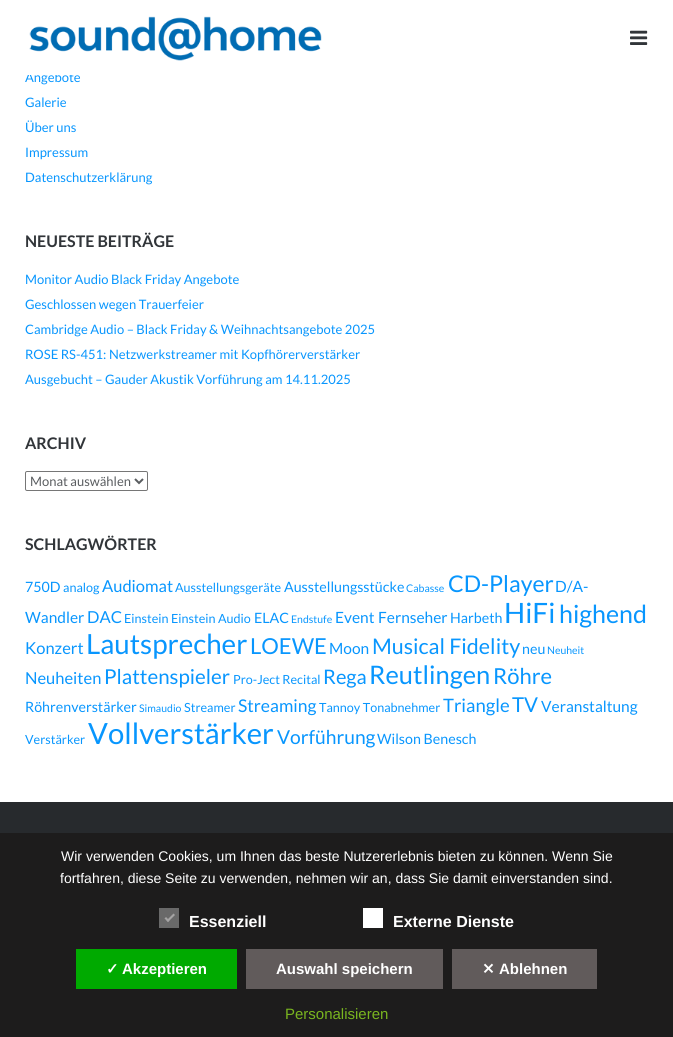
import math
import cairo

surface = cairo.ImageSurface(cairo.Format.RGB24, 673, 1037)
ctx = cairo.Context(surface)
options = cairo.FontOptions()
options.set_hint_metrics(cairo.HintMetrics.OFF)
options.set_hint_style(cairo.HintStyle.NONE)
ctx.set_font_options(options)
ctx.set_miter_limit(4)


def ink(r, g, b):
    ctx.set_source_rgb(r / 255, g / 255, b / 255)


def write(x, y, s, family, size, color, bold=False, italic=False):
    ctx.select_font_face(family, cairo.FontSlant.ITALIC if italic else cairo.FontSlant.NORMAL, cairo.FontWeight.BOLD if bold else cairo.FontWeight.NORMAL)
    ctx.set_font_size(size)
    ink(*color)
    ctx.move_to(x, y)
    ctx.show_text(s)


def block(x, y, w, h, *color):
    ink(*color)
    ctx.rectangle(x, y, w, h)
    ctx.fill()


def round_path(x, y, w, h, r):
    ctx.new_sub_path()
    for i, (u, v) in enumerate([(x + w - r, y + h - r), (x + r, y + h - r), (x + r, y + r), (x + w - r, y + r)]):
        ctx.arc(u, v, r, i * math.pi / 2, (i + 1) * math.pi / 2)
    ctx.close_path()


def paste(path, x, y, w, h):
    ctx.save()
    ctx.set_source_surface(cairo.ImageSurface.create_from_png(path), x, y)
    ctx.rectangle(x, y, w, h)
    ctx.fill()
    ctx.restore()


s1 = dict(family="Lato", size=13, color=(8, 150, 254))
s2 = dict(family="Lato", size=16, color=(49, 53, 57), bold=True)
s3 = dict(family="Lato", size=13, color=(90, 93, 96))
s4 = dict(family="Lato", size=14.25, color=(8, 150, 254))
s5 = dict(family="Lato", size=12.6, color=(8, 150, 254))
s6 = dict(family="Lato", size=16.5, color=(8, 150, 254))
s7 = dict(family="Lato", size=10.5, color=(8, 150, 254))
s8 = dict(family="Lato", size=23, color=(8, 150, 254))
s9 = dict(family="Lato", size=15.5, color=(8, 150, 254))
s10 = dict(family="Lato", size=28, color=(8, 150, 254))
s11 = dict(family="Lato", size=25, color=(8, 150, 254))
s12 = dict(family="Lato", size=27.75, color=(8, 150, 254))
s13 = dict(family="Lato", size=22, color=(8, 150, 254))
s14 = dict(family="Lato", size=21.5, color=(8, 150, 254))
s15 = dict(family="Lato", size=20.5, color=(8, 150, 254))
s16 = dict(family="Lato", size=20, color=(8, 150, 254))
s17 = dict(family="Lato", size=25.5, color=(8, 150, 254))
s18 = dict(family="Lato", size=17.5, color=(8, 150, 254))
s19 = dict(family="Lato", size=18.5, color=(8, 150, 254))
s20 = dict(family="Lato", size=29.25, color=(8, 150, 254))
s21 = dict(family="Lato", size=19.25, color=(8, 150, 254))
s22 = dict(family="Liberation Sans", size=14, color=(255, 255, 255))
s23 = dict(family="Liberation Sans", size=16, color=(255, 255, 255), bold=True)
s24 = dict(family="DejaVu Sans", size=15, color=(255, 255, 255), bold=True)
s25 = dict(family="Liberation Sans", size=15, color=(255, 255, 255), bold=True)
s26 = dict(family="Liberation Sans", size=15, color=(121, 181, 31))

ink(255, 255, 255)
ctx.paint()
write(25, 82, "Angebote", **s1)
block(27, 72, 45, 3, 255, 255, 255)
paste("pic1.png", 29, 16, 293, 45)
paste("pic2.png", 630, 30, 18, 15)
write(25, 107, "Galerie", **s1)
write(25, 132, "Über uns", **s1)
write(25, 157, "Impressum", **s1)
write(25, 182, "Datenschutzerklärung", **s1)
write(25, 247, "NEUESTE BEITRÄGE", **s2)
write(25, 284, "Monitor Audio Black Friday Angebote", **s1)
write(25, 309, "Geschlossen wegen Trauerfeier", **s1)
write(25, 334, "Cambridge Audio – Black Friday & Weihnachtsangebote 2025", **s1)
write(25, 359, "ROSE RS-451: Netzwerkstreamer mit Kopfhörerverstärker", **s1)
write(25, 384, "Ausgebucht – Gauder Akustik Vorführung am 14.11.2025", **s1)
write(25, 449, "ARCHIV", **s2)
round_path(25.5, 471.5, 122, 19, 1.5)
ink(118, 118, 118)
ctx.set_line_width(1)
ctx.stroke()
ctx.new_path()
ctx.move_to(135, 479)
ctx.line_to(139, 483)
ctx.line_to(143, 479)
ink(90, 93, 96)
ctx.set_line_width(2)
ctx.stroke()
write(30, 486, "Monat auswählen", **s3)
write(25, 550, "SCHLAGWÖRTER", **s2)
write(25, 592, "750D", **s4)
write(63, 592, "analog", **s5)
write(102, 592, "Audiomat", **s6)
write(175, 592, "Ausstellungsgeräte", **s5)
write(284, 592, "Ausstellungsstücke", **s4)
write(406, 592, "Cabasse", **s7)
write(448, 592, "CD-Player", **s8)
write(555, 592, "D/A-", **s9)
write(25, 623, "Wandler", **s9)
write(87, 623, "DAC", **s6)
write(124, 623, "Einstein Einstein Audio", **s5)
write(254, 623, "ELAC", **s4)
write(291, 623, "Endstufe", **s7)
write(335, 623, "Event", **s9)
write(378, 623, "Fernseher", **s9)
write(450, 623, "Harbeth", **s4)
write(504, 623, "HiFi", **s10)
write(559, 623, "highend", **s11)
write(25, 654, "Konzert", **s6)
write(86, 654, "Lautsprecher", **s12)
write(250, 654, "LOEWE", **s13)
write(329, 654, "Moon", **s9)
write(372, 654, "Musical Fidelity", **s14)
write(522, 654, "neu", **s4)
write(547, 654, "Neuheit", **s7)
write(25, 684, "Neuheiten", **s6)
write(104, 684, "Plattenspieler", **s15)
write(233, 684, "Pro-Ject Recital", **s5)
write(323, 684, "Rega", **s16)
write(369, 684, "Reutlingen", **s17)
write(493, 684, "Röhre", **s13)
write(25, 712, "Röhrenverstärker", **s4)
write(139, 712, "Simaudio", **s7)
write(184, 712, "Streamer", **s5)
write(238, 712, "Streaming", **s18)
write(319, 712, "Tannoy Tonabnehmer", **s5)
write(443, 712, "Triangle", **s19)
write(512, 712, "TV", **s15)
write(541, 712, "Veranstaltung", **s9)
write(25, 744, "Verstärker", **s5)
write(88, 744, "Vollverstärker", **s20)
write(277, 744, "Vorführung", **s21)
write(377, 744, "Wilson Benesch", **s4)
block(0, 802, 673, 31, 39, 42, 45)
block(0, 833, 673, 204, 29, 28, 28)
write(61, 861, "Wir verwenden Cookies, um Ihnen das beste Nutzererlebnis bieten zu können. Wenn Sie", **s22)
write(60, 883, "fortfahren, diese Seite zu verwenden, nehmen wir an, dass Sie damit einverstanden sind.", **s22)
block(159, 908, 20, 20, 105, 105, 105)
ink(165, 164, 164)
ctx.new_path()
ctx.move_to(173.5, 913.5)
ctx.line_to(175, 915)
ctx.line_to(168, 922)
ctx.line_to(166.5, 920.5)
ctx.close_path()
ctx.fill()
ctx.new_path()
ctx.move_to(166, 917)
ctx.line_to(169.5, 920.5)
ctx.line_to(168, 922)
ctx.line_to(164.5, 918.5)
ctx.close_path()
ctx.fill()
write(189, 927, "Essenziell", **s23)
block(363, 908, 20, 20, 255, 255, 255)
write(393, 927, "Externe Dienste", **s23)
block(76, 949, 161, 40, 0, 170, 0)
write(106, 974, "✓", **s24)
write(122, 974, "Akzeptieren", **s25)
block(246, 949, 197, 40, 97, 91, 91)
write(276, 974, "Auswahl speichern", **s25)
block(452, 949, 145, 40, 97, 91, 91)
write(482, 974, "✕", **s24)
write(499, 974, "Ablehnen", **s25)
write(285, 1019, "Personalisieren", **s26)
surface.write_to_png("screenshot.png")
